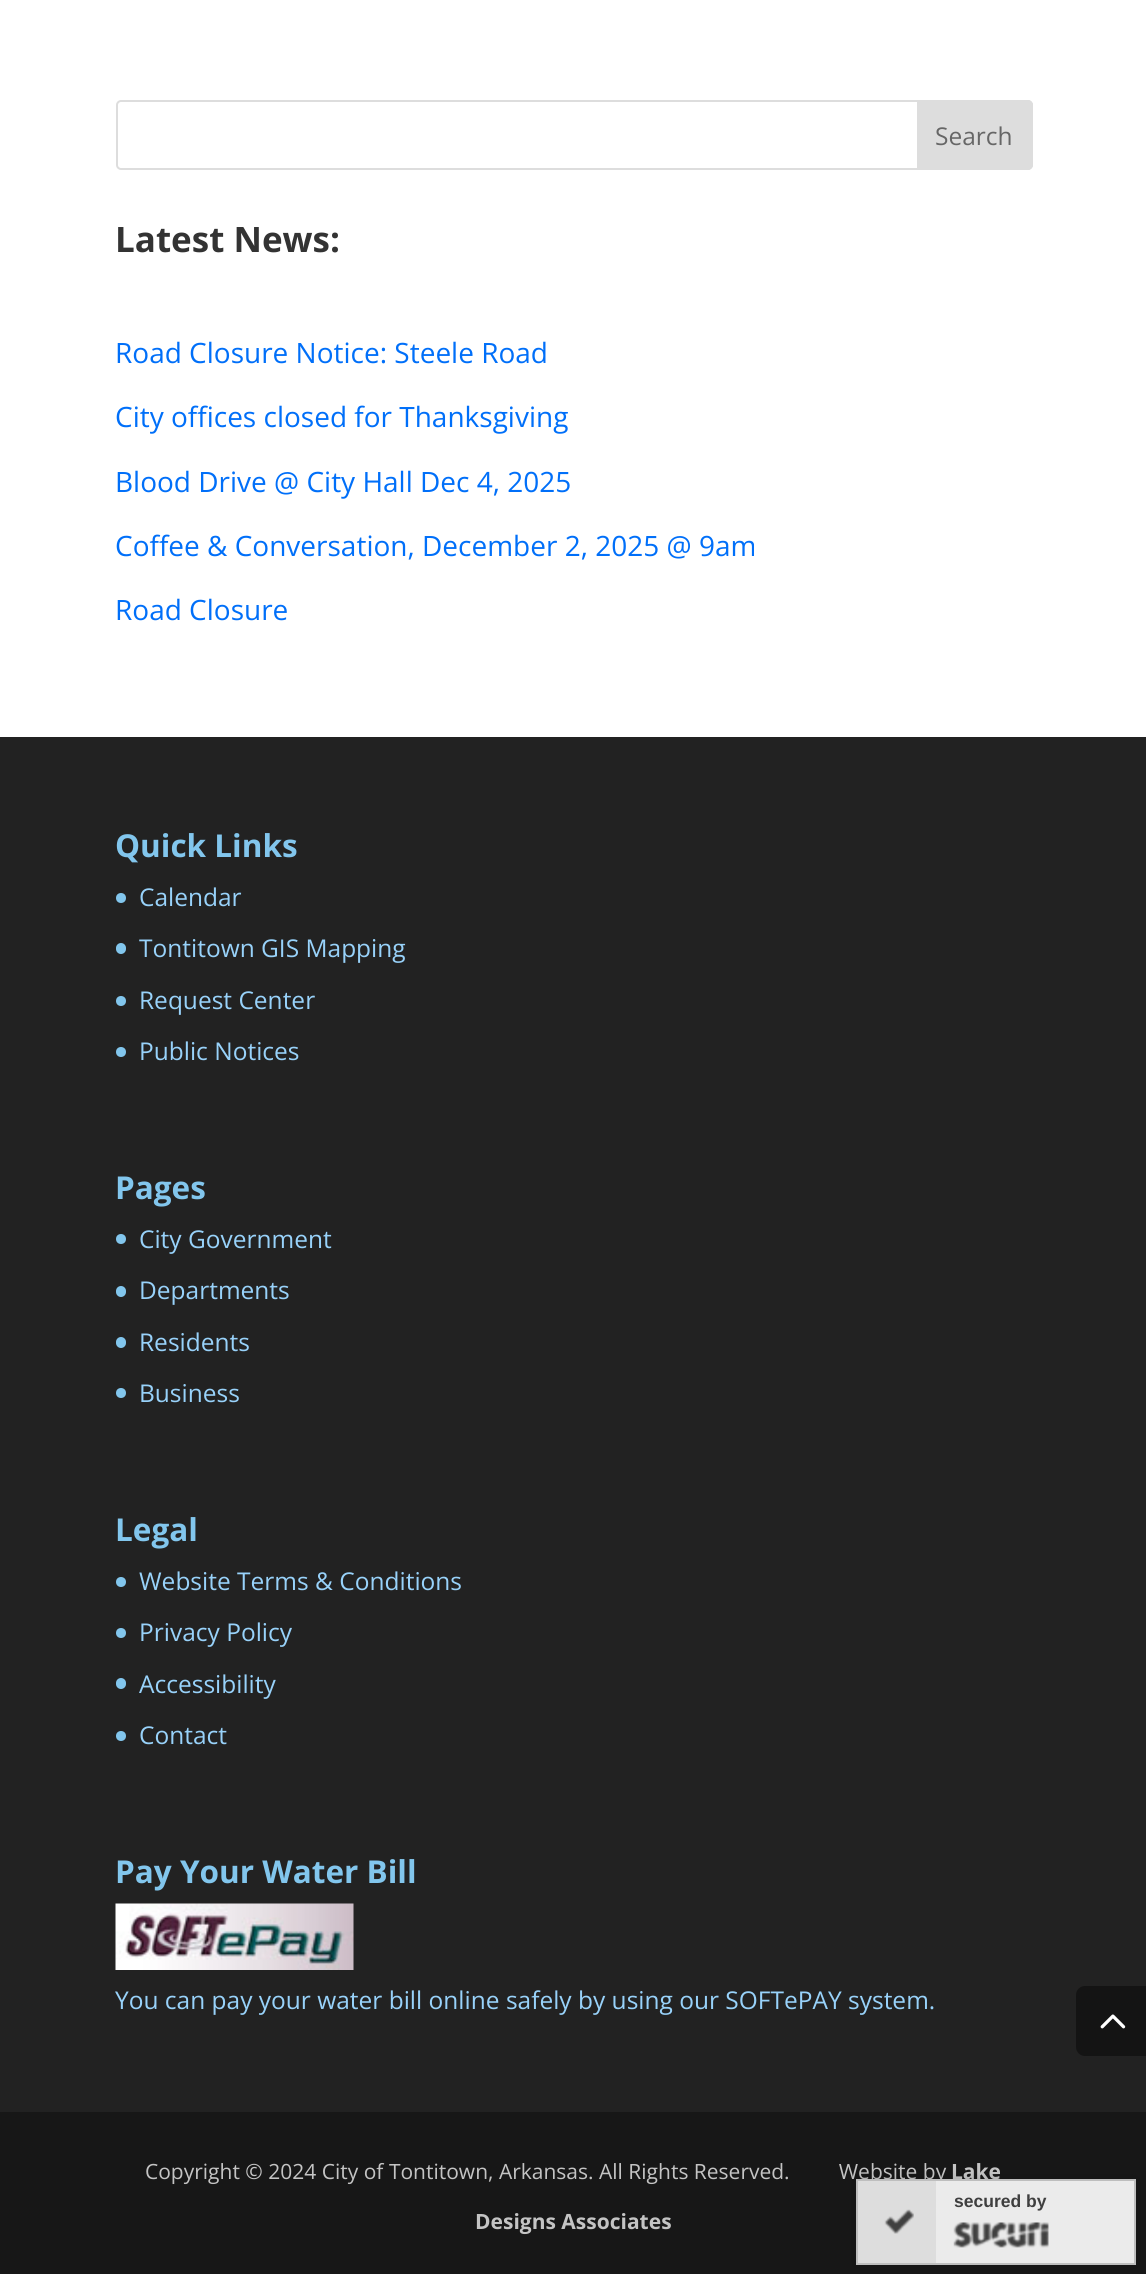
import math
import cairo

surface = cairo.ImageSurface(cairo.Format.RGB24, 1146, 2274)
ctx = cairo.Context(surface)
options = cairo.FontOptions()
options.set_hint_metrics(cairo.HintMetrics.OFF)
options.set_hint_style(cairo.HintStyle.NONE)
ctx.set_font_options(options)
ctx.set_miter_limit(4)


def ink(r, g, b):
    ctx.set_source_rgb(r / 255, g / 255, b / 255)


def write(x, y, s, family, size, color, bold=False, italic=False):
    ctx.select_font_face(family, cairo.FontSlant.ITALIC if italic else cairo.FontSlant.NORMAL, cairo.FontWeight.BOLD if bold else cairo.FontWeight.NORMAL)
    ctx.set_font_size(size)
    ink(*color)
    ctx.move_to(x, y)
    ctx.show_text(s)


def block(x, y, w, h, *color):
    ink(*color)
    ctx.rectangle(x, y, w, h)
    ctx.fill()


def round_path(x, y, w, h, r):
    ctx.new_sub_path()
    for i, (u, v) in enumerate([(x + w - r, y + h - r), (x + r, y + h - r), (x + r, y + r), (x + w - r, y + r)]):
        ctx.arc(u, v, r, i * math.pi / 2, (i + 1) * math.pi / 2)
    ctx.close_path()


def blur_box(x, y, w, h, r, blur, alpha):
    ctx.push_group_with_content(cairo.Content.ALPHA)
    ctx.set_operator(cairo.Operator.SOURCE)
    for i in range(15, -16, -2):
        e = blur * i / 6
        if min(w, h) + 2 * e > 0:
            ctx.set_source_rgba(0, 0, 0, alpha * math.erfc((i - 1) / 8.5) / 2)
            round_path(x - e, y - e, w + 2 * e, h + 2 * e, max(0, min(r + e + blur * .6, min(w, h) / 2 + e)))
            ctx.fill()
    ctx.mask(ctx.pop_group())


def paste(path, x, y, w, h):
    ctx.save()
    ctx.set_source_surface(cairo.ImageSurface.create_from_png(path), x, y)
    ctx.rectangle(x, y, w, h)
    ctx.fill()
    ctx.restore()


s1 = dict(family="Open Sans", size=24.5, color=(102, 102, 102))
s2 = dict(family="Open Sans", size=35, color=(51, 51, 51), bold=True)
s3 = dict(family="Open Sans", size=28, color=(0, 111, 249))
s4 = dict(family="Open Sans", size=31.5, color=(130, 198, 237), bold=True)
s5 = dict(family="Open Sans", size=24.5, color=(152, 210, 250))
s6 = dict(family="Open Sans", size=21, color=(196, 196, 196))
s7 = dict(family="Open Sans", size=21, color=(196, 196, 196), bold=True)
s8 = dict(family="Liberation Sans", size=17.5, color=(63, 63, 63), bold=True)

ink(255, 255, 255)
ctx.paint()
round_path(117, 101, 915, 68, 4)
ink(221, 221, 221)
ctx.stroke()
ctx.new_path()
ctx.move_to(918, 101)
ctx.line_to(1028, 101)
ctx.curve_to(1030, 101, 1032, 103, 1032, 105)
ctx.line_to(1032, 165)
ctx.curve_to(1032, 167, 1030, 169, 1028, 169)
ctx.line_to(918, 169)
ctx.close_path()
ctx.fill_preserve()
ctx.stroke()
write(935, 145, "Search", **s1)
write(115, 252, "Latest News:", **s2)
write(115, 363, "Road Closure Notice: Steele Road", **s3)
write(115, 427, "City offices closed for Thanksgiving", **s3)
write(115, 492, "Blood Drive @ City Hall Dec 4, 2025", **s3)
write(115, 556, "Coffee & Conversation, December 2, 2025 @ 9am", **s3)
write(115, 620, "Road Closure", **s3)
block(0, 737, 1146, 1375, 34, 34, 34)
write(115, 857, "Quick Links", **s4)
ctx.new_path()
ctx.arc(121, 898, 5, 0, 2 * math.pi)
ctx.fill()
write(139, 906, "Calendar", **s5)
ink(130, 198, 237)
round_path(116, 943, 10, 11, 5)
ctx.fill()
write(139, 957, "Tontitown GIS Mapping", **s5)
ink(130, 198, 237)
ctx.new_path()
ctx.arc(121, 1001, 5, 0, 2 * math.pi)
ctx.fill()
write(139, 1009, "Request Center", **s5)
ink(130, 198, 237)
ctx.new_path()
ctx.arc(121, 1052, 5, 0, 2 * math.pi)
ctx.fill()
write(139, 1060, "Public Notices", **s5)
write(115, 1199, "Pages", **s4)
ctx.new_path()
ctx.arc(121, 1239, 5, 0, 2 * math.pi)
ctx.fill()
write(139, 1248, "City Government", **s5)
ink(130, 198, 237)
round_path(116, 1286, 10, 11, 5)
ctx.fill()
write(139, 1299, "Departments", **s5)
ink(130, 198, 237)
round_path(116, 1337, 10, 11, 5)
ctx.fill()
write(139, 1351, "Residents", **s5)
ink(130, 198, 237)
ctx.new_path()
ctx.arc(121, 1393, 5, 0, 2 * math.pi)
ctx.fill()
write(139, 1402, "Business", **s5)
write(115, 1541, "Legal", **s4)
ctx.new_path()
ctx.arc(121, 1582, 5, 0, 2 * math.pi)
ctx.fill()
write(139, 1590, "Website Terms & Conditions", **s5)
ink(130, 198, 237)
ctx.new_path()
ctx.arc(121, 1633, 5, 0, 2 * math.pi)
ctx.fill()
write(139, 1641, "Privacy Policy", **s5)
ink(130, 198, 237)
round_path(116, 1678, 10, 11, 5)
ctx.fill()
write(139, 1693, "Accessibility", **s5)
ink(130, 198, 237)
ctx.new_path()
ctx.arc(121, 1736, 5, 0, 2 * math.pi)
ctx.fill()
write(139, 1744, "Contact", **s5)
write(115, 1883, "Pay Your Water Bill", **s4)
paste("pic1.png", 115, 1903, 239, 67)
write(115, 2009, "You can pay your water bill online safely by using our SOFTePAY system.", **s5)
block(0, 2112, 1146, 162, 23, 23, 23)
write(145, 2179, "Copyright © 2024 City of Tontitown, Arkansas. All Rights Reserved.         Website by", **s6)
write(951, 2179, "Lake", **s7)
write(475, 2229, "Designs Associates", **s7)
ink(20, 20, 20)
ctx.new_path()
ctx.move_to(1085, 1986)
ctx.line_to(1146, 1986)
ctx.line_to(1146, 2056)
ctx.line_to(1085, 2056)
ctx.curve_to(1080, 2056, 1076, 2052, 1076, 2047)
ctx.line_to(1076, 1995)
ctx.curve_to(1076, 1990, 1080, 1986, 1085, 1986)
ctx.close_path()
ctx.fill()
paste("pic2.png", 1100, 2014, 26, 15)
ink(0, 0, 0)
blur_box(856, 2179, 280, 86, 0, 5, 0.14)
block(936, 2181, 198, 82, 235, 235, 235)
ctx.rectangle(857, 2180, 278, 84)
ink(190, 190, 190)
ctx.stroke()
block(858, 2181, 78, 82, 221, 221, 221)
paste("pic3.png", 884, 2209, 30, 25)
write(954, 2207, "secured by", **s8)
paste("pic4.png", 953, 2222, 96, 26)
surface.write_to_png("screenshot.png")
